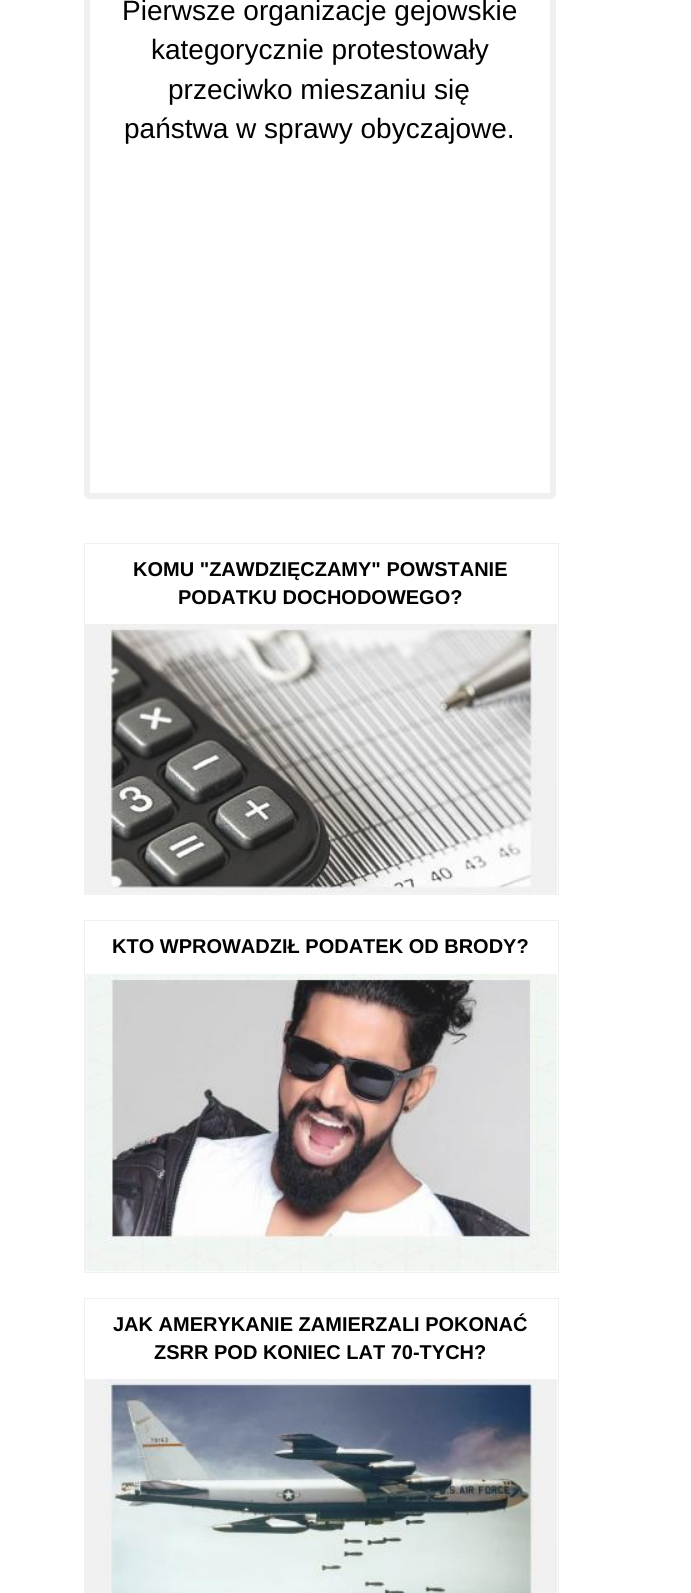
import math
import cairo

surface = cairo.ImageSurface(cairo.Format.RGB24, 691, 1593)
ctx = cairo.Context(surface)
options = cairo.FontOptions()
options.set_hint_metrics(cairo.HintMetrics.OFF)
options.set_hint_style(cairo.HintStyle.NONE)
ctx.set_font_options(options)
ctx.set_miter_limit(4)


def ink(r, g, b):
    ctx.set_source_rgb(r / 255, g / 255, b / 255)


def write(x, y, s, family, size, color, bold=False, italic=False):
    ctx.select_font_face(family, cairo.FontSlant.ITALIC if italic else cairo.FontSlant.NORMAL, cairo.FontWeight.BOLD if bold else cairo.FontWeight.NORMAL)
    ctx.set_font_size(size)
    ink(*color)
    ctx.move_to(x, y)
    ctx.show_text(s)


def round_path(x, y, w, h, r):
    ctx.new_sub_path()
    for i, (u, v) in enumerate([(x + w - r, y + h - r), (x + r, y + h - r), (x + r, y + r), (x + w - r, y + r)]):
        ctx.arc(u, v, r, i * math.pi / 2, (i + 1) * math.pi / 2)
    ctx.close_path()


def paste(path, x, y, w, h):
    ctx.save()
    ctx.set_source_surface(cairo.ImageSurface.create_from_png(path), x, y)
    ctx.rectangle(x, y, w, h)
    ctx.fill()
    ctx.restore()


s1 = dict(family="Liberation Sans", size=28, color=(0, 0, 0))
s2 = dict(family="Liberation Sans", size=20, color=(0, 0, 0), bold=True)

ink(255, 255, 255)
ctx.paint()
round_path(87, -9, 466, 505, 3)
ink(240, 240, 240)
ctx.set_line_width(6)
ctx.stroke()
write(122, 20, "Pierwsze organizacje gejowskie", **s1)
write(151, 59, "kategorycznie protestowały", **s1)
write(168, 99, "przeciwko mieszaniu się", **s1)
write(124, 138, "państwa w sprawy obyczajowe.", **s1)
ctx.rectangle(84.5, 543.5, 474, 351)
ink(240, 240, 240)
ctx.set_line_width(1)
ctx.stroke()
write(133, 576, "KOMU \"ZAWDZIĘCZAMY\" POWSTANIE", **s2)
write(178, 604, "PODATKU DOCHODOWEGO?", **s2)
paste("pic1.png", 85, 624, 473, 270)
ctx.rectangle(84.5, 920.5, 474, 352)
ink(240, 240, 240)
ctx.stroke()
write(112, 953, "KTO WPROWADZIŁ PODATEK OD BRODY?", **s2)
paste("pic2.png", 85, 974, 473, 298)
ctx.rectangle(84.5, 1298.5, 474, 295)
ink(240, 240, 240)
ctx.stroke()
write(113, 1331, "JAK AMERYKANIE ZAMIERZALI POKONAĆ", **s2)
write(154, 1359, "ZSRR POD KONIEC LAT 70-TYCH?", **s2)
paste("pic3.png", 85, 1379, 473, 214)
surface.write_to_png("screenshot.png")
